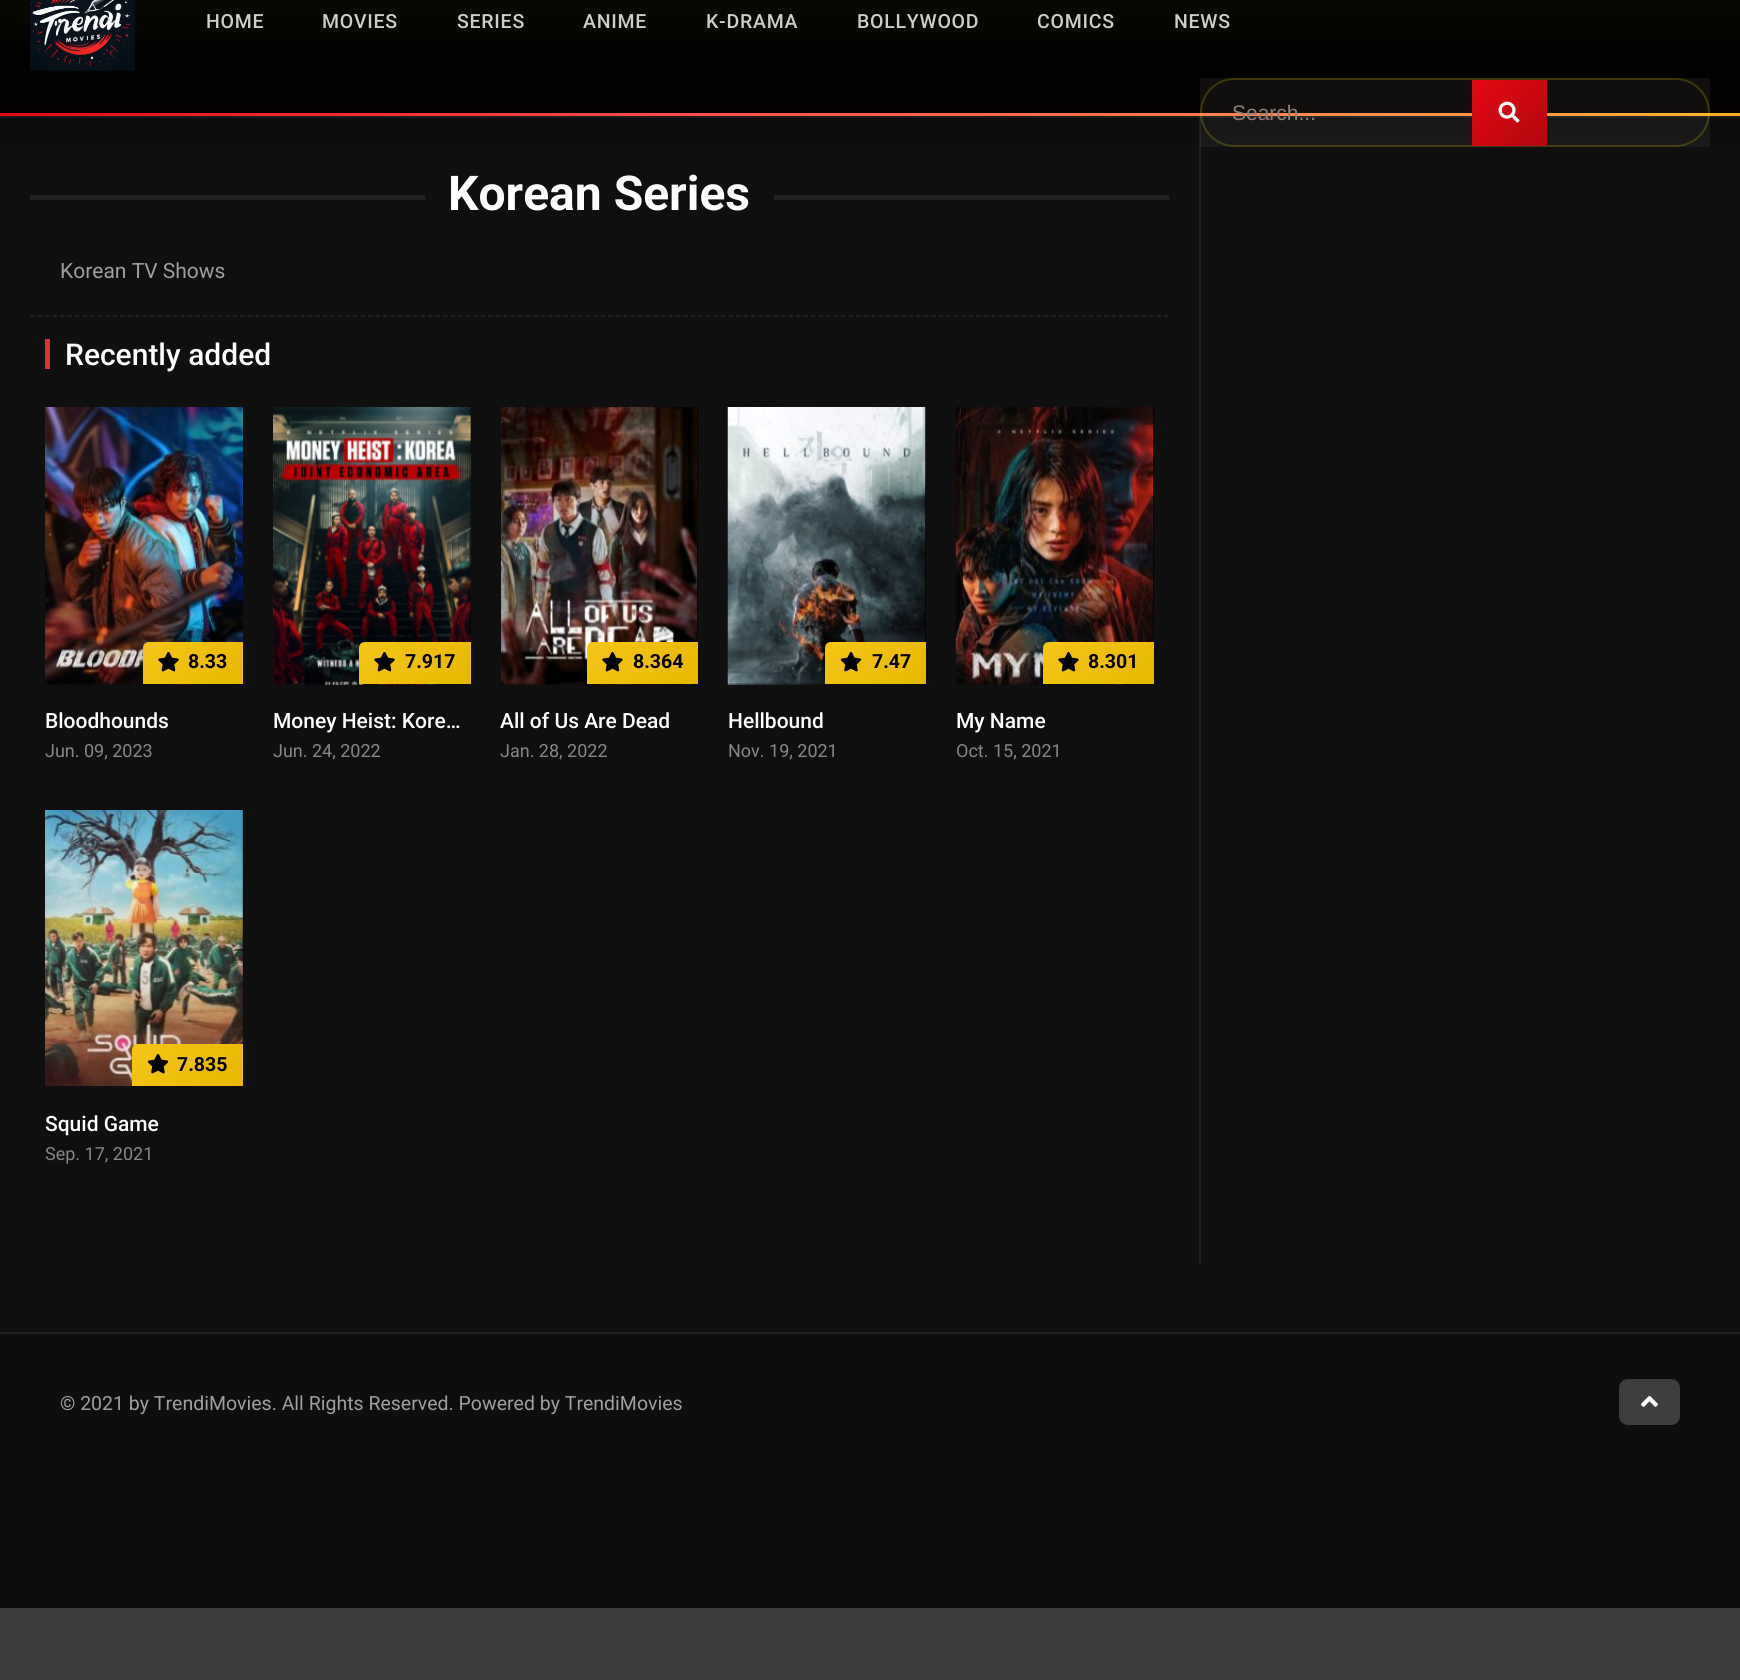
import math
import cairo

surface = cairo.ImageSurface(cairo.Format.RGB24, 1740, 1680)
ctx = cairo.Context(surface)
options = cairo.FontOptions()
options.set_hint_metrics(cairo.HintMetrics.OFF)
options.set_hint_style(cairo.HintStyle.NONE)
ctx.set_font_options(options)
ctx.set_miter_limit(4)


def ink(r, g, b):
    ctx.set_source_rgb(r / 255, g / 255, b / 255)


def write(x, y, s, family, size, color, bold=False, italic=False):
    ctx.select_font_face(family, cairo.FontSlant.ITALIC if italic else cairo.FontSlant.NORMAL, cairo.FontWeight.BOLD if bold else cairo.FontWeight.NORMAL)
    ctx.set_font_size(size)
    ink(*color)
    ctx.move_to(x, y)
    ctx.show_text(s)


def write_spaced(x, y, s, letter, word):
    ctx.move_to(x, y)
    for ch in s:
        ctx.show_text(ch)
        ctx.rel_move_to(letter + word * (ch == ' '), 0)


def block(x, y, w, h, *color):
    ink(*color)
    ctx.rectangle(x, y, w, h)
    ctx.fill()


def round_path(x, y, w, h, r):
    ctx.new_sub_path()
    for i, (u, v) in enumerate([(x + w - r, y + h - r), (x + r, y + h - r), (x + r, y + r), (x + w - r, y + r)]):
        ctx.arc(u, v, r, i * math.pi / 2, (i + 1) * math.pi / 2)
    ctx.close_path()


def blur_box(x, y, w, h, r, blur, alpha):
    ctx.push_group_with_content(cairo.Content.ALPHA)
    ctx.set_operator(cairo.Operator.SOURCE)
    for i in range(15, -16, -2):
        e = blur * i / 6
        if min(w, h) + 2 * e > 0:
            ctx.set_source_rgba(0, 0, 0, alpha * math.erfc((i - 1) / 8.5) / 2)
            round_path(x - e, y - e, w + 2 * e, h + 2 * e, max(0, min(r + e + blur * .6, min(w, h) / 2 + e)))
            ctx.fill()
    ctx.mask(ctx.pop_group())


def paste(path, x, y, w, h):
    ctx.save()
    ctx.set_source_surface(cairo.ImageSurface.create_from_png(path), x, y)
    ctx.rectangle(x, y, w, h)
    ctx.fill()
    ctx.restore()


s1 = dict(family="Liberation Sans", size=21, color=(143, 128, 121))
s2 = dict(family="Roboto", size=48, color=(255, 255, 255), bold=True)
s3 = dict(family="Roboto", size=21, color=(159, 159, 159))
s4 = dict(family="Roboto Medium", size=30, color=(255, 255, 255))
s5 = dict(family="Roboto", size=19.5, color=(0, 0, 0), bold=True)
s6 = dict(family="Roboto Medium", size=21, color=(255, 255, 255))
s7 = dict(family="Roboto", size=18, color=(135, 135, 135))
s8 = dict(family="Roboto", size=19.5, color=(159, 159, 159))

ink(59, 59, 59)
ctx.paint()
block(0, 1334, 1740, 274, 14, 14, 14)
block(0, 118, 1740, 1214, 15, 15, 15)
block(1199, 117, 2, 1148, 34, 34, 34)
block(0, 116, 1740, 2, 32, 32, 32)
block(1199, 117, 2, 1, 50, 50, 50)
ink(0, 0, 0)
blur_box(0, 6, 1740, 116, 0, 22.5, 0.3)
gradient = cairo.LinearGradient(870, 0, 870, 113)
gradient.add_color_stop_rgba(0, 0.035, 0.031, 0.004, 1)
gradient.add_color_stop_rgba(0.5, 0.008, 0.008, 0.008, 1)
gradient.add_color_stop_rgba(1, 0.024, 0.008, 0.008, 1)
ctx.set_source(gradient)
ctx.rectangle(0, 0, 1740, 113)
ctx.fill()
paste("pic1.png", 30, 0, 105, 71)
ctx.select_font_face("Roboto Medium")
ctx.set_font_size(19.5)
ink(205, 205, 204)
write_spaced(206, 28, "HOME", 0.75, 0)
write_spaced(322, 28, "MOVIES", 0.75, 0)
write_spaced(457, 28, "SERIES", 0.75, 0)
write_spaced(583, 28, "ANIME", 0.75, 0)
write_spaced(706, 28, "K-DRAMA", 0.75, 0)
write_spaced(857, 28, "BOLLYWOOD", 0.75, 0)
write_spaced(1037, 28, "COMICS", 0.75, 0)
write_spaced(1174, 28, "NEWS", 0.75, 0)
gradient = cairo.LinearGradient(0, 114, 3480, 114)
gradient.add_color_stop_rgba(0, 0.898, 0.035, 0.078, 1)
gradient.add_color_stop_rgba(0.2, 1, 0.302, 0.302, 1)
gradient.add_color_stop_rgba(0.4, 1, 0.549, 0.259, 1)
gradient.add_color_stop_rgba(0.6, 1, 0.843, 0, 1)
gradient.add_color_stop_rgba(0.8, 1, 0.549, 0.259, 1)
gradient.add_color_stop_rgba(1, 0.898, 0.035, 0.078, 1)
ctx.set_source(gradient)
ctx.rectangle(0, 113, 1740, 3)
ctx.fill()
ctx.set_source_rgba(1, 1, 1, 0.05)
ctx.rectangle(1200, 78, 510, 69)
ctx.fill()
round_path(1201, 79, 508, 67, 33.5)
ctx.set_source_rgba(1, 0.843, 0, 0.2)
ctx.stroke()
write(1232, 120, "Search...", **s1)
gradient = cairo.LinearGradient(1474, 77, 1544, 148)
gradient.add_color_stop_rgba(0, 0.898, 0.035, 0.078, 1)
gradient.add_color_stop_rgba(1, 0.698, 0.027, 0.063, 1)
ctx.set_source(gradient)
ctx.rectangle(1472, 80, 75, 66)
ctx.fill()
paste("pic2.png", 1498, 101, 22, 22)
block(0, 1332, 1740, 2, 32, 32, 32)
block(30, 195, 395, 5, 34, 34, 34)
write(448, 210, "Korean Series", **s2)
block(774, 195, 395, 5, 34, 34, 34)
ctx.new_path()
ctx.move_to(30, 316)
ctx.line_to(1168.5, 316)
ctx.set_line_width(1.5)
ctx.set_dash([4.5, 3.01])
ctx.stroke()
write(60, 278, "Korean TV Shows", **s3)
block(45, 339, 5, 30, 221, 51, 51)
write(65, 365, "Recently added", **s4)
paste("pic3.png", 45, 407, 198, 278)
gradient = cairo.LinearGradient(157, 627, 228, 699)
gradient.add_color_stop_rgba(0, 0.961, 0.773, 0.094, 1)
gradient.add_color_stop_rgba(1, 0.902, 0.722, 0, 1)
ctx.set_source(gradient)
ctx.new_path()
ctx.move_to(149, 642)
ctx.line_to(243, 642)
ctx.line_to(243, 684)
ctx.line_to(143, 684)
ctx.line_to(143, 648)
ctx.curve_to(143, 644.5, 145.5, 642, 149, 642)
ctx.close_path()
ctx.fill()
paste("pic4.png", 158, 652, 21, 20)
write(188, 668, "8.33", **s5)
write(45, 728, "Bloodhounds", **s6)
write(45, 757, "Jun. 09, 2023", **s7)
paste("pic5.png", 273, 407, 198, 278)
gradient = cairo.LinearGradient(376, 624, 453, 702)
gradient.add_color_stop_rgba(0, 0.961, 0.773, 0.094, 1)
gradient.add_color_stop_rgba(1, 0.902, 0.722, 0, 1)
ctx.set_source(gradient)
ctx.new_path()
ctx.move_to(365, 642)
ctx.line_to(471, 642)
ctx.line_to(471, 684)
ctx.line_to(359, 684)
ctx.line_to(359, 648)
ctx.curve_to(359, 644.5, 361.5, 642, 365, 642)
ctx.close_path()
ctx.fill()
paste("pic6.png", 374, 652, 21, 20)
write(405, 668, "7.917", **s5)
write(273, 728, "Money Heist: Kore…", **s6)
write(273, 757, "Jun. 24, 2022", **s7)
block(501, 407, 197, 277, 0, 0, 0)
paste("pic7.png", 501, 407, 197, 278)
gradient = cairo.LinearGradient(604, 625, 680, 701)
gradient.add_color_stop_rgba(0, 0.961, 0.773, 0.094, 1)
gradient.add_color_stop_rgba(1, 0.902, 0.722, 0, 1)
ctx.set_source(gradient)
ctx.new_path()
ctx.move_to(593, 642)
ctx.line_to(698, 642)
ctx.line_to(698, 684)
ctx.line_to(587, 684)
ctx.line_to(587, 648)
ctx.curve_to(587, 644.5, 589.5, 642, 593, 642)
ctx.close_path()
ctx.fill()
paste("pic8.png", 602, 652, 21, 20)
write(633, 668, "8.364", **s5)
write(500, 728, "All of Us Are Dead", **s6)
write(500, 757, "Jan. 28, 2022", **s7)
block(728, 407, 198, 277, 0, 0, 0)
paste("pic9.png", 727, 407, 199, 278)
gradient = cairo.LinearGradient(840, 627, 911, 699)
gradient.add_color_stop_rgba(0, 0.961, 0.773, 0.094, 1)
gradient.add_color_stop_rgba(1, 0.902, 0.722, 0, 1)
ctx.set_source(gradient)
ctx.new_path()
ctx.move_to(831, 642)
ctx.line_to(926, 642)
ctx.line_to(926, 684)
ctx.line_to(825, 684)
ctx.line_to(825, 648)
ctx.curve_to(825, 644.5, 827.5, 642, 831, 642)
ctx.close_path()
ctx.fill()
paste("pic10.png", 840, 652, 22, 20)
write(872, 668, "7.47", **s5)
write(728, 728, "Hellbound", **s6)
write(728, 757, "Nov. 19, 2021", **s7)
block(956, 407, 198, 277, 0, 0, 0)
paste("pic11.png", 955, 407, 199, 278)
gradient = cairo.LinearGradient(1060, 625, 1136, 701)
gradient.add_color_stop_rgba(0, 0.961, 0.773, 0.094, 1)
gradient.add_color_stop_rgba(1, 0.902, 0.722, 0, 1)
ctx.set_source(gradient)
ctx.new_path()
ctx.move_to(1049, 642)
ctx.line_to(1154, 642)
ctx.line_to(1154, 684)
ctx.line_to(1043, 684)
ctx.line_to(1043, 648)
ctx.curve_to(1043, 644.5, 1045.5, 642, 1049, 642)
ctx.close_path()
ctx.fill()
paste("pic8.png", 1058, 652, 21, 20)
write(1088, 668, "8.301", **s5)
write(956, 728, "My Name", **s6)
write(956, 757, "Oct. 15, 2021", **s7)
paste("pic12.png", 45, 810, 198, 276)
gradient = cairo.LinearGradient(149, 1027, 226, 1103)
gradient.add_color_stop_rgba(0, 0.961, 0.773, 0.094, 1)
gradient.add_color_stop_rgba(1, 0.902, 0.722, 0, 1)
ctx.set_source(gradient)
ctx.new_path()
ctx.move_to(138, 1044)
ctx.line_to(243, 1044)
ctx.line_to(243, 1086)
ctx.line_to(132, 1086)
ctx.line_to(132, 1050)
ctx.curve_to(132, 1046.5, 134.5, 1044, 138, 1044)
ctx.close_path()
ctx.fill()
paste("pic13.png", 147, 1054, 22, 20)
write(177, 1071, "7.835", **s5)
write(45, 1131, "Squid Game", **s6)
write(45, 1160, "Sep. 17, 2021", **s7)
write(60, 1410, "© 2021 by TrendiMovies. All Rights Reserved. Powered by TrendiMovies", **s8)
ink(62, 62, 62)
round_path(1619, 1379, 61, 46, 9)
ctx.fill()
paste("pic14.png", 1641, 1396, 17, 11)
surface.write_to_png("screenshot.png")
